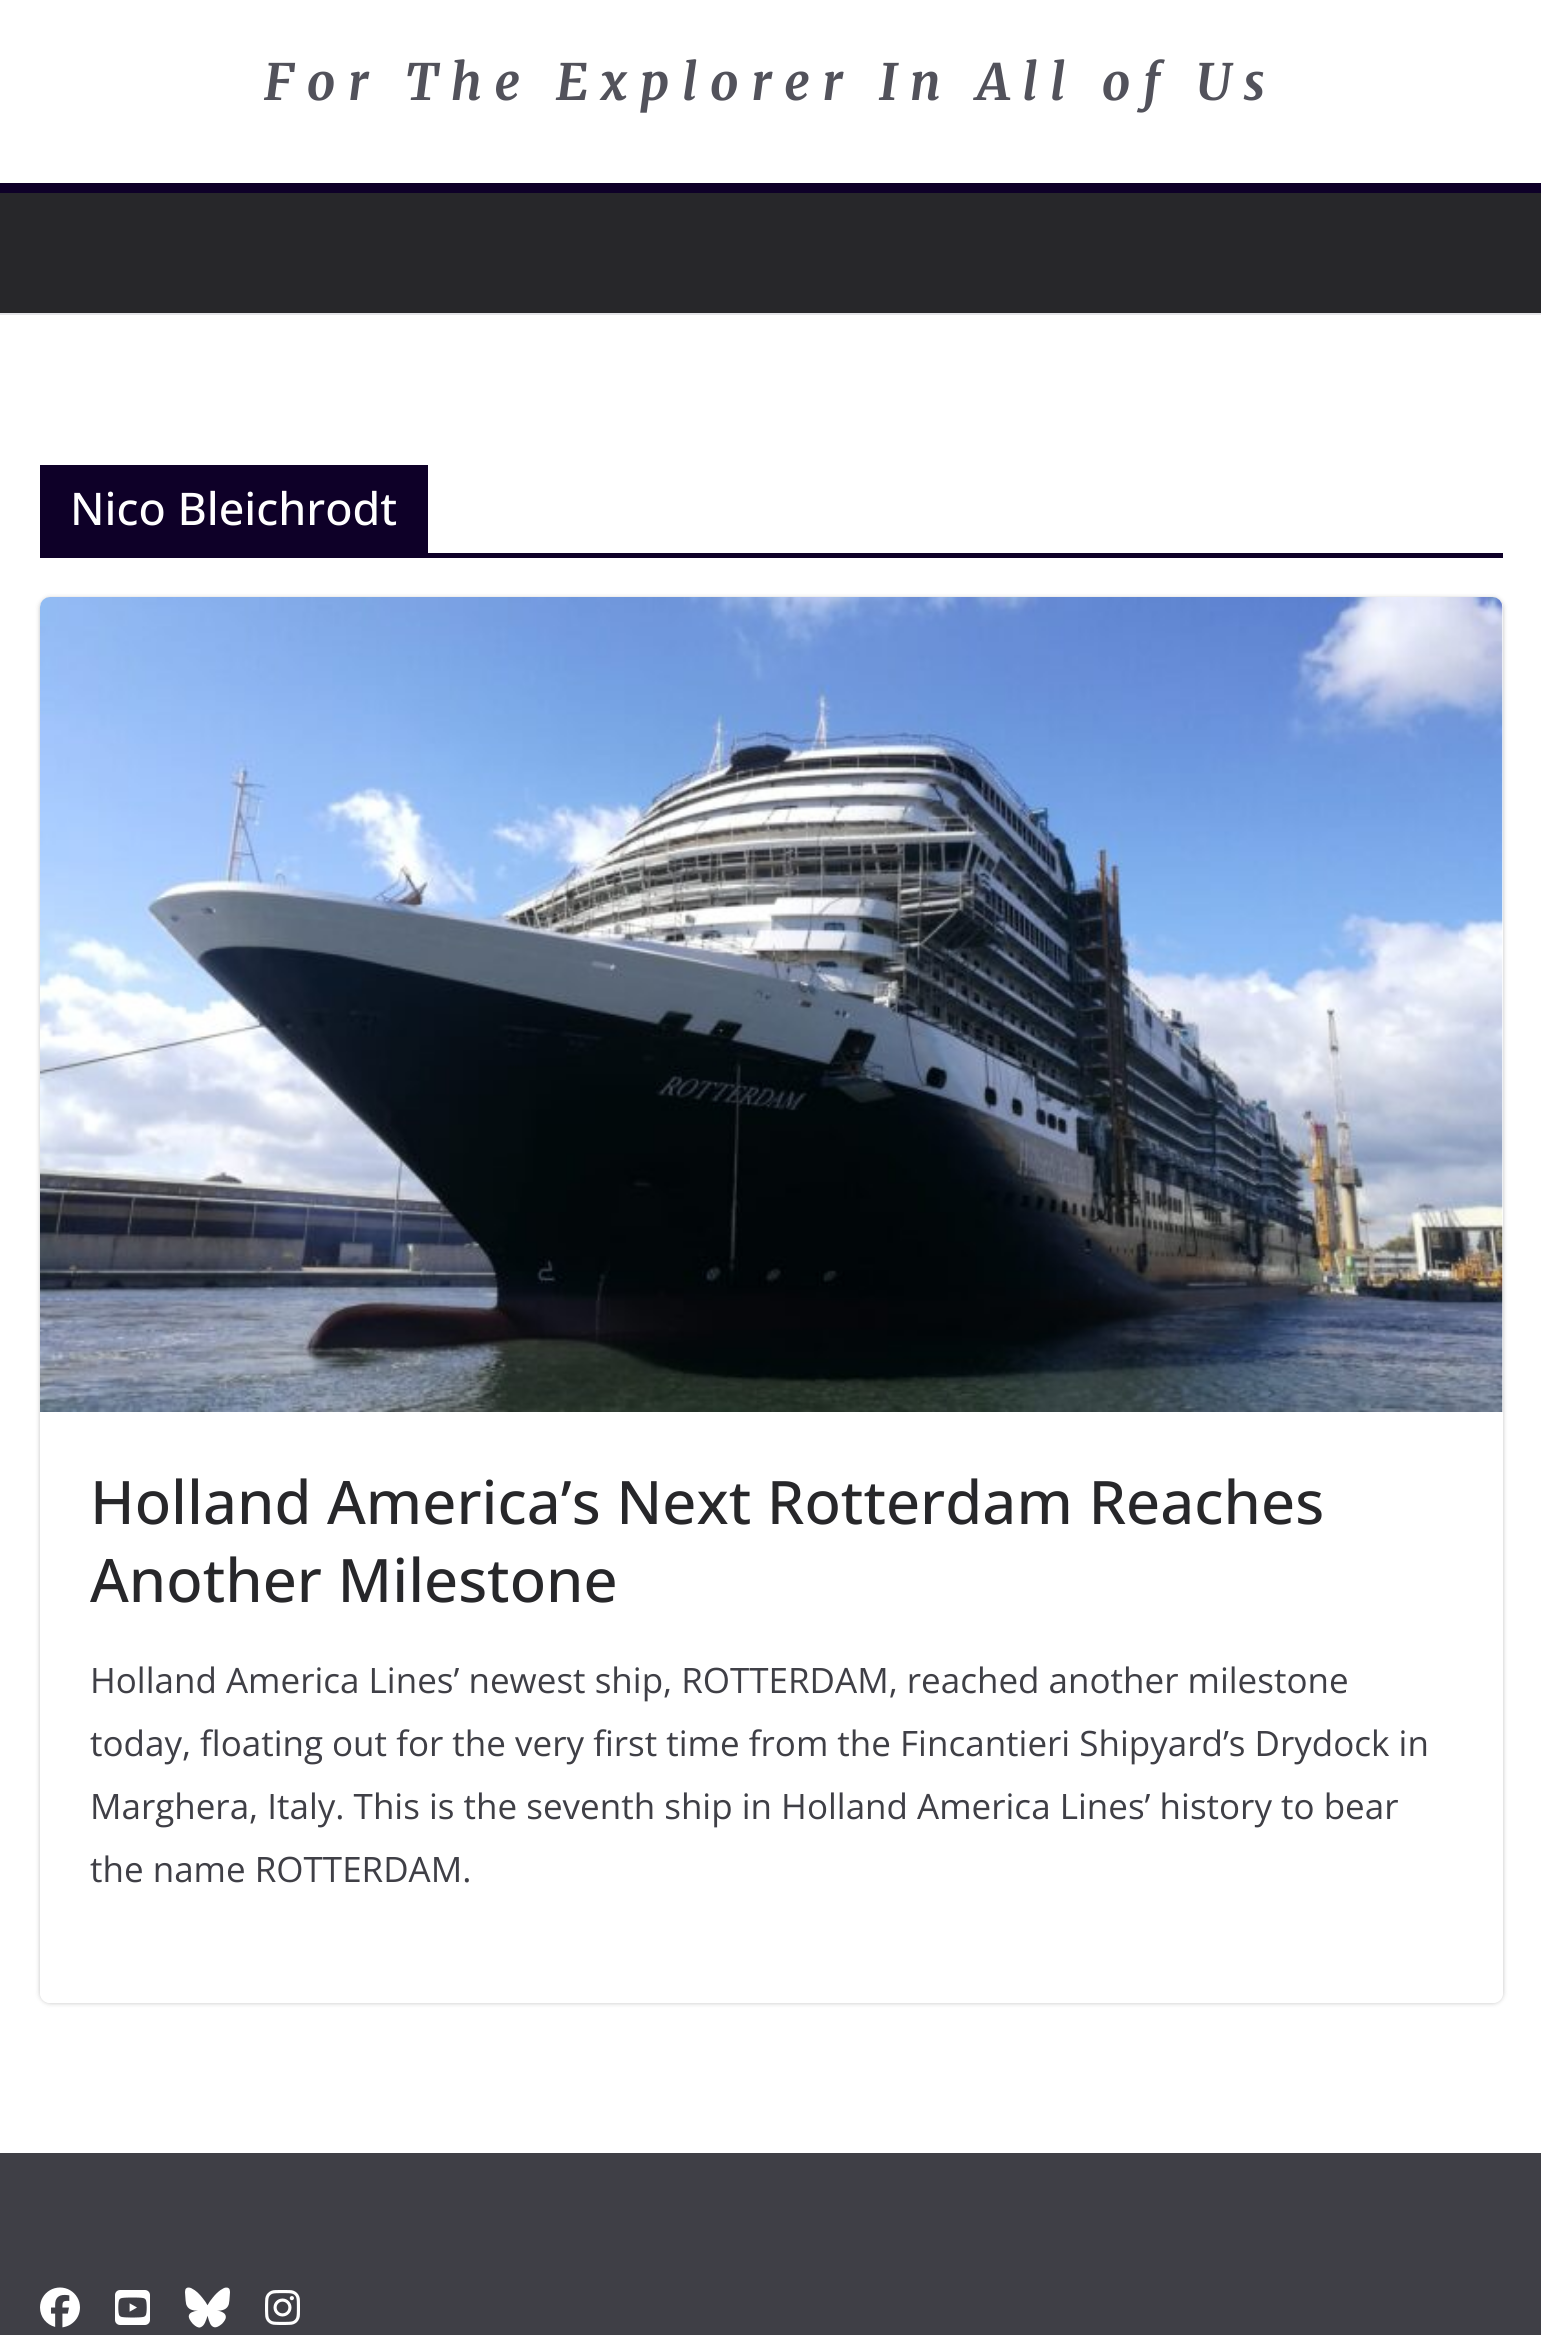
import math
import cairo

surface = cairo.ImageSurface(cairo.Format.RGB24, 1541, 2335)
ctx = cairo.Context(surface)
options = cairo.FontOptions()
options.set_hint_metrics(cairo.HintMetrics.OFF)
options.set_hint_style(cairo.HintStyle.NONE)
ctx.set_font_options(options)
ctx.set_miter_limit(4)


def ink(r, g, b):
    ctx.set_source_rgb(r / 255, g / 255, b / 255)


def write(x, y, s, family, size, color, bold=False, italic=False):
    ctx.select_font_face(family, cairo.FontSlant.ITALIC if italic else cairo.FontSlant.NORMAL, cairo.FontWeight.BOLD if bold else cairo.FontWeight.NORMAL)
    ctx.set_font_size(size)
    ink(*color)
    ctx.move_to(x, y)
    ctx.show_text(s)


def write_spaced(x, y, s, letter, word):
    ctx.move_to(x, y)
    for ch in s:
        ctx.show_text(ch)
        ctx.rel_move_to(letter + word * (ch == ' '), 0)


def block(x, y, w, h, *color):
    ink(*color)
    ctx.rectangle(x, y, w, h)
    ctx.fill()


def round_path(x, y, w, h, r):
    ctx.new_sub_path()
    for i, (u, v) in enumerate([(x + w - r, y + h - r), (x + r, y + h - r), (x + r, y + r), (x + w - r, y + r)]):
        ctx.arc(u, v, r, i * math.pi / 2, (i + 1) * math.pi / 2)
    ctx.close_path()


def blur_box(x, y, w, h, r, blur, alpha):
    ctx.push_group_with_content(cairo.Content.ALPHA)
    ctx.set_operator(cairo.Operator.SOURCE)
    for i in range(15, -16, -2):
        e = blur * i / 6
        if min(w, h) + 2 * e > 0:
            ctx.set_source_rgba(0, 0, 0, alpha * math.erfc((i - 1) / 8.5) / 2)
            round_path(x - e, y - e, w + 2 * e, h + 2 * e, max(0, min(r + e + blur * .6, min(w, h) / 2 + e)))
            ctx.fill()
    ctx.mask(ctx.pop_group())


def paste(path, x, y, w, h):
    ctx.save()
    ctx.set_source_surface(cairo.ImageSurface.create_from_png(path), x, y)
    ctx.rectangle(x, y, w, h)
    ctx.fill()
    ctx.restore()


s1 = dict(family="Open Sans Medium", size=45, color=(255, 255, 255))
s2 = dict(family="Open Sans Medium", size=60, color=(39, 39, 42))
s3 = dict(family="Open Sans", size=35, color=(63, 63, 70))

ink(255, 255, 255)
ctx.paint()
block(0, 313, 1541, 2, 228, 228, 231)
ctx.select_font_face("Merriweather", cairo.FontSlant.ITALIC, cairo.FontWeight.BOLD)
ctx.set_font_size(50)
ink(82, 82, 91)
write_spaced(264, 100, "For The Explorer In All of Us", 12.5, 0)
block(0, 193, 1541, 120, 39, 39, 42)
block(0, 183, 1541, 10, 14, 0, 40)
block(40, 553, 1463, 5, 14, 0, 40)
block(40, 465, 388, 88, 14, 0, 40)
write(70, 525, "Nico Bleichrodt", **s1)
ctx.save()
ctx.set_fill_rule(cairo.FillRule.EVEN_ODD)
ctx.new_path()
ctx.move_to(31, 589)
ctx.line_to(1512, 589)
ctx.line_to(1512, 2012)
ctx.line_to(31, 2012)
ctx.close_path()
ctx.move_to(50, 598)
ctx.line_to(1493, 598)
ctx.curve_to(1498.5, 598, 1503, 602.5, 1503, 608)
ctx.line_to(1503, 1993)
ctx.curve_to(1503, 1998.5, 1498.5, 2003, 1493, 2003)
ctx.line_to(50, 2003)
ctx.curve_to(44.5, 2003, 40, 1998.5, 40, 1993)
ctx.line_to(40, 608)
ctx.curve_to(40, 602.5, 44.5, 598, 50, 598)
ctx.close_path()
ctx.clip()
ink(0, 0, 0)
blur_box(40, 598, 1463, 1405, 10, 2.5, 0.24)
ctx.restore()
paste("pic1.png", 40, 597, 1463, 815)
write(90, 1524, "Holland America’s Next Rotterdam Reaches", **s2)
write(90, 1602, "Another Milestone", **s2)
write(90, 1693, "Holland America Lines’ newest ship, ROTTERDAM, reached another milestone", **s3)
write(90, 1756, "today, floating out for the very first time from the Fincantieri Shipyard’s Drydock in", **s3)
write(90, 1819, "Marghera, Italy. This is the seventh ship in Holland America Lines’ history to bear", **s3)
write(90, 1882, "the name ROTTERDAM.", **s3)
block(0, 2153, 1541, 182, 63, 63, 70)
paste("pic2.png", 40, 2287, 40, 41)
paste("pic3.png", 115, 2290, 35, 35)
paste("pic4.png", 185, 2287, 45, 41)
paste("pic5.png", 265, 2290, 35, 35)
surface.write_to_png("screenshot.png")
